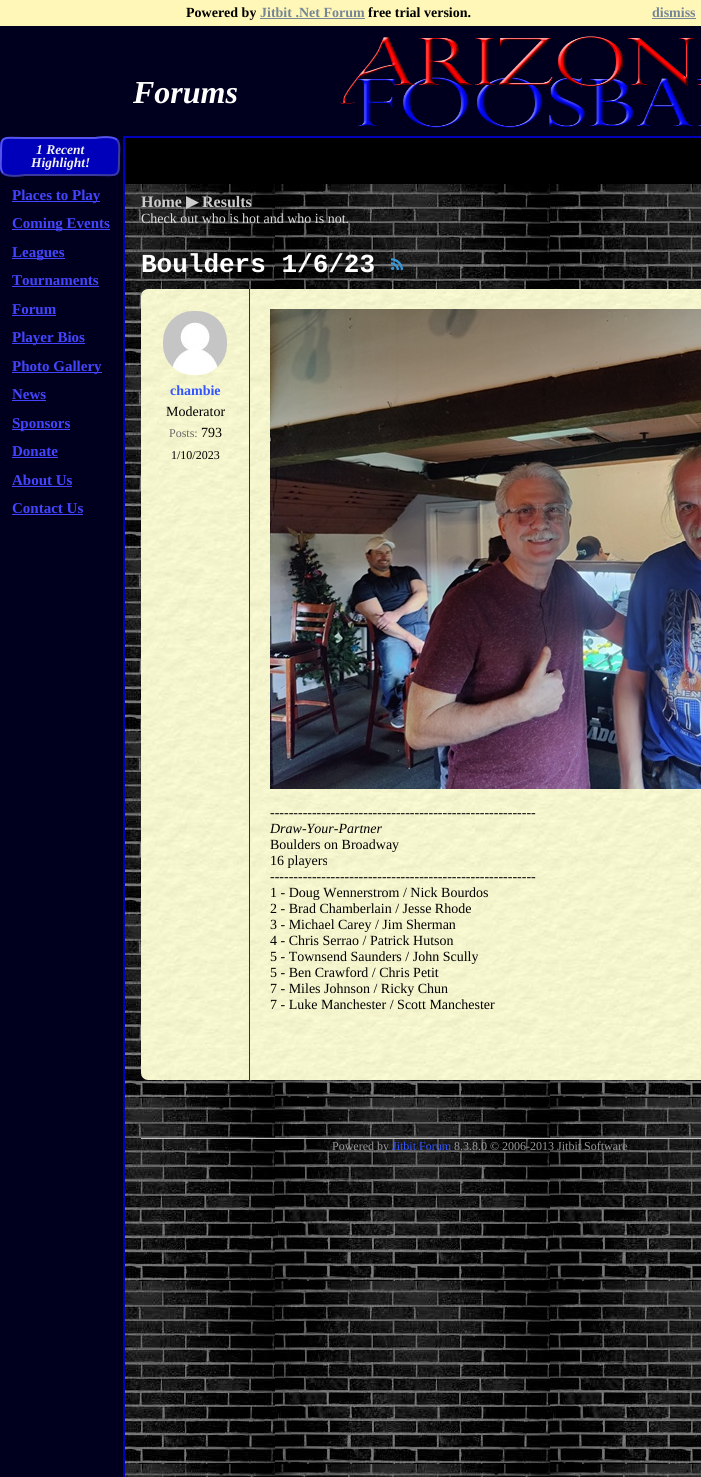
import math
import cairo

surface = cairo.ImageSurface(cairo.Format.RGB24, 701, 1477)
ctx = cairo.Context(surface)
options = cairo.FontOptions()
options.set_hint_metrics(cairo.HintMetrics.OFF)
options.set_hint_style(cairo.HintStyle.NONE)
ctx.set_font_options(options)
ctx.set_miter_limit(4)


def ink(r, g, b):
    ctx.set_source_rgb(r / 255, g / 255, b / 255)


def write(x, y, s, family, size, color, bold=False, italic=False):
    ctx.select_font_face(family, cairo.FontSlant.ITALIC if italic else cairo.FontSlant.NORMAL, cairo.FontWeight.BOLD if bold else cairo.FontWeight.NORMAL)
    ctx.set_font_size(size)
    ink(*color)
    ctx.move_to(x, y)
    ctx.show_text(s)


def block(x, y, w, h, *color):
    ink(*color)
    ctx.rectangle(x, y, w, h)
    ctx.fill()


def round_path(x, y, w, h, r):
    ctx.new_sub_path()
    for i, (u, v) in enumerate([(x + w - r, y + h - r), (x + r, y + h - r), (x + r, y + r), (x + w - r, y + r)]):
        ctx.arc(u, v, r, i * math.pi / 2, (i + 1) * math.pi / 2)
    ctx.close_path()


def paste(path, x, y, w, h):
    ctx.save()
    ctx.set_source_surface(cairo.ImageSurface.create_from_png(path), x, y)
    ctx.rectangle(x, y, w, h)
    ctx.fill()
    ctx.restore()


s1 = dict(family="Liberation Serif", size=14, color=(0, 0, 0), bold=True)
s2 = dict(family="Liberation Serif", size=14, color=(118, 134, 150), bold=True)
s3 = dict(family="Liberation Serif", size=32, color=(255, 255, 255), bold=True, italic=True)
s4 = dict(family="Liberation Serif", size=13.5, color=(241, 241, 241), bold=True, italic=True)
s5 = dict(family="Liberation Serif", size=15, color=(68, 68, 255), bold=True)
s6 = dict(family="Liberation Serif", size=16, color=(204, 204, 204), bold=True)
s7 = dict(family="DejaVu Sans", size=16, color=(204, 204, 204), bold=True)
s8 = dict(family="Liberation Serif", size=14, color=(221, 221, 221))
s9 = dict(family="Liberation Mono", size=26, color=(255, 255, 255), bold=True)
s10 = dict(family="Liberation Serif", size=14, color=(51, 85, 255), bold=True)
s11 = dict(family="Liberation Serif", size=14, color=(0, 0, 0))
s12 = dict(family="Liberation Serif", size=12, color=(102, 102, 102))
s13 = dict(family="Liberation Serif", size=12, color=(0, 0, 0))
s14 = dict(family="Liberation Serif", size=14, color=(0, 0, 0), italic=True)
s15 = dict(family="Liberation Serif", size=12, color=(153, 153, 153))
s16 = dict(family="Liberation Serif", size=12, color=(51, 85, 255))

ink(255, 255, 255)
ctx.paint()
paste("pic1.png", 125, 184, 576, 1293)
block(0, 0, 701, 26, 255, 247, 183)
write(186, 17, "Powered by", **s1)
write(260, 17, "Jitbit .Net Forum", **s2)
block(260, 18, 105, 1, 118, 134, 150)
write(368, 17, "free trial version.", **s1)
write(652, 17, "dismiss", **s2)
block(652, 18, 44, 1, 118, 134, 150)
block(0, 26, 701, 110, 0, 0, 30)
block(125, 136, 576, 2, 0, 0, 187)
write(133, 103, "Forums", **s3)
paste("pic2.png", 340, 36, 361, 92)
block(0, 136, 123, 1341, 0, 0, 30)
block(123, 136, 2, 1341, 0, 0, 187)
round_path(0, 137, 120, 39, 7)
ctx.fill()
ctx.new_path()
ctx.move_to(117, 140)
ctx.curve_to(120.5, 143.5, 119, 152.5, 119, 156.5)
ctx.curve_to(119, 178.5, 119.5, 175, 95, 175)
ctx.line_to(25, 175)
ctx.curve_to(24.5, 175, 7.5, 178, 3, 173)
ink(57, 57, 159)
ctx.stroke()
ctx.new_path()
ctx.move_to(3, 173)
ctx.curve_to(-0.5, 169.5, 1, 160.5, 1, 156.5)
ctx.curve_to(1, 134.5, 0.5, 138, 25, 138)
ctx.line_to(95, 138)
ctx.curve_to(95.5, 138, 112.5, 135, 117, 140)
ink(85, 85, 238)
ctx.stroke()
write(36, 154, "1 Recent", **s4)
write(31, 167, "Highlight!", **s4)
block(12, 201, 88, 1, 68, 68, 255)
write(12, 200, "Places to Play", **s5)
block(12, 229, 98, 1, 68, 68, 255)
write(12, 228, "Coming Events", **s5)
block(12, 258, 53, 1, 68, 68, 255)
write(12, 257, "Leagues", **s5)
write(12, 285, "Tournaments", **s5)
block(12, 286, 87, 1, 68, 68, 255)
write(12, 314, "Forum", **s5)
block(12, 315, 44, 1, 68, 68, 255)
block(12, 343, 73, 1, 68, 68, 255)
write(12, 342, "Player Bios", **s5)
block(12, 372, 90, 1, 68, 68, 255)
write(12, 371, "Photo Gallery", **s5)
write(12, 399, "News", **s5)
block(12, 400, 34, 1, 68, 68, 255)
block(12, 429, 58, 1, 68, 68, 255)
write(12, 428, "Sponsors", **s5)
write(12, 456, "Donate", **s5)
block(12, 457, 46, 1, 68, 68, 255)
write(12, 485, "About Us", **s5)
block(12, 486, 60, 1, 68, 68, 255)
write(12, 513, "Contact Us", **s5)
block(12, 514, 71, 1, 68, 68, 255)
block(125, 138, 576, 46, 0, 0, 0)
write(141, 207, "Home", **s6)
write(186, 207, "▶", **s7)
write(202, 207, "Results", **s6)
write(141, 223, "Check out who is hot and who is not.", **s8)
write(141, 272, "Boulders 1/6/23", **s9)
paste("pic3.png", 391, 258, 12, 12)
paste("pic4.png", 141, 289, 108, 760)
paste("pic5.png", 163, 311, 64, 64)
write(170, 395, "chambie", **s10)
write(166, 416, "Moderator", **s11)
write(169, 437, "Posts:", **s12)
write(201, 437, "793", **s11)
write(171, 459, "1/10/2023", **s13)
paste("pic6.png", 250, 289, 451, 760)
block(249, 289, 1, 791, 51, 51, 51)
paste("pic7.png", 270, 309, 431, 480)
write(270, 817, "---------------------------------------------------------", **s11)
write(270, 833, "Draw-Your-Partner", **s14)
write(270, 849, "Boulders on Broadway", **s11)
write(270, 865, "16 players", **s11)
write(270, 881, "---------------------------------------------------------", **s11)
write(270, 897, "1 - Doug Wennerstrom / Nick Bourdos", **s11)
write(270, 913, "2 - Brad Chamberlain / Jesse Rhode", **s11)
write(270, 929, "3 - Michael Carey / Jim Sherman", **s11)
write(270, 945, "4 - Chris Serrao / Patrick Hutson", **s11)
write(270, 961, "5 - Townsend Saunders / John Scully", **s11)
write(270, 977, "5 - Ben Crawford / Chris Petit", **s11)
write(270, 993, "7 - Miles Johnson / Ricky Chun", **s11)
write(270, 1009, "7 - Luke Manchester / Scott Manchester", **s11)
paste("pic8.png", 141, 1049, 108, 31)
paste("pic9.png", 250, 1049, 451, 31)
block(141, 1138, 560, 1, 192, 192, 192)
write(332, 1150, "Powered by", **s15)
write(392, 1150, "Jitbit Forum", **s16)
write(454, 1150, "8.3.8.0 © 2006-2013 Jitbit Software", **s15)
surface.write_to_png("screenshot.png")
